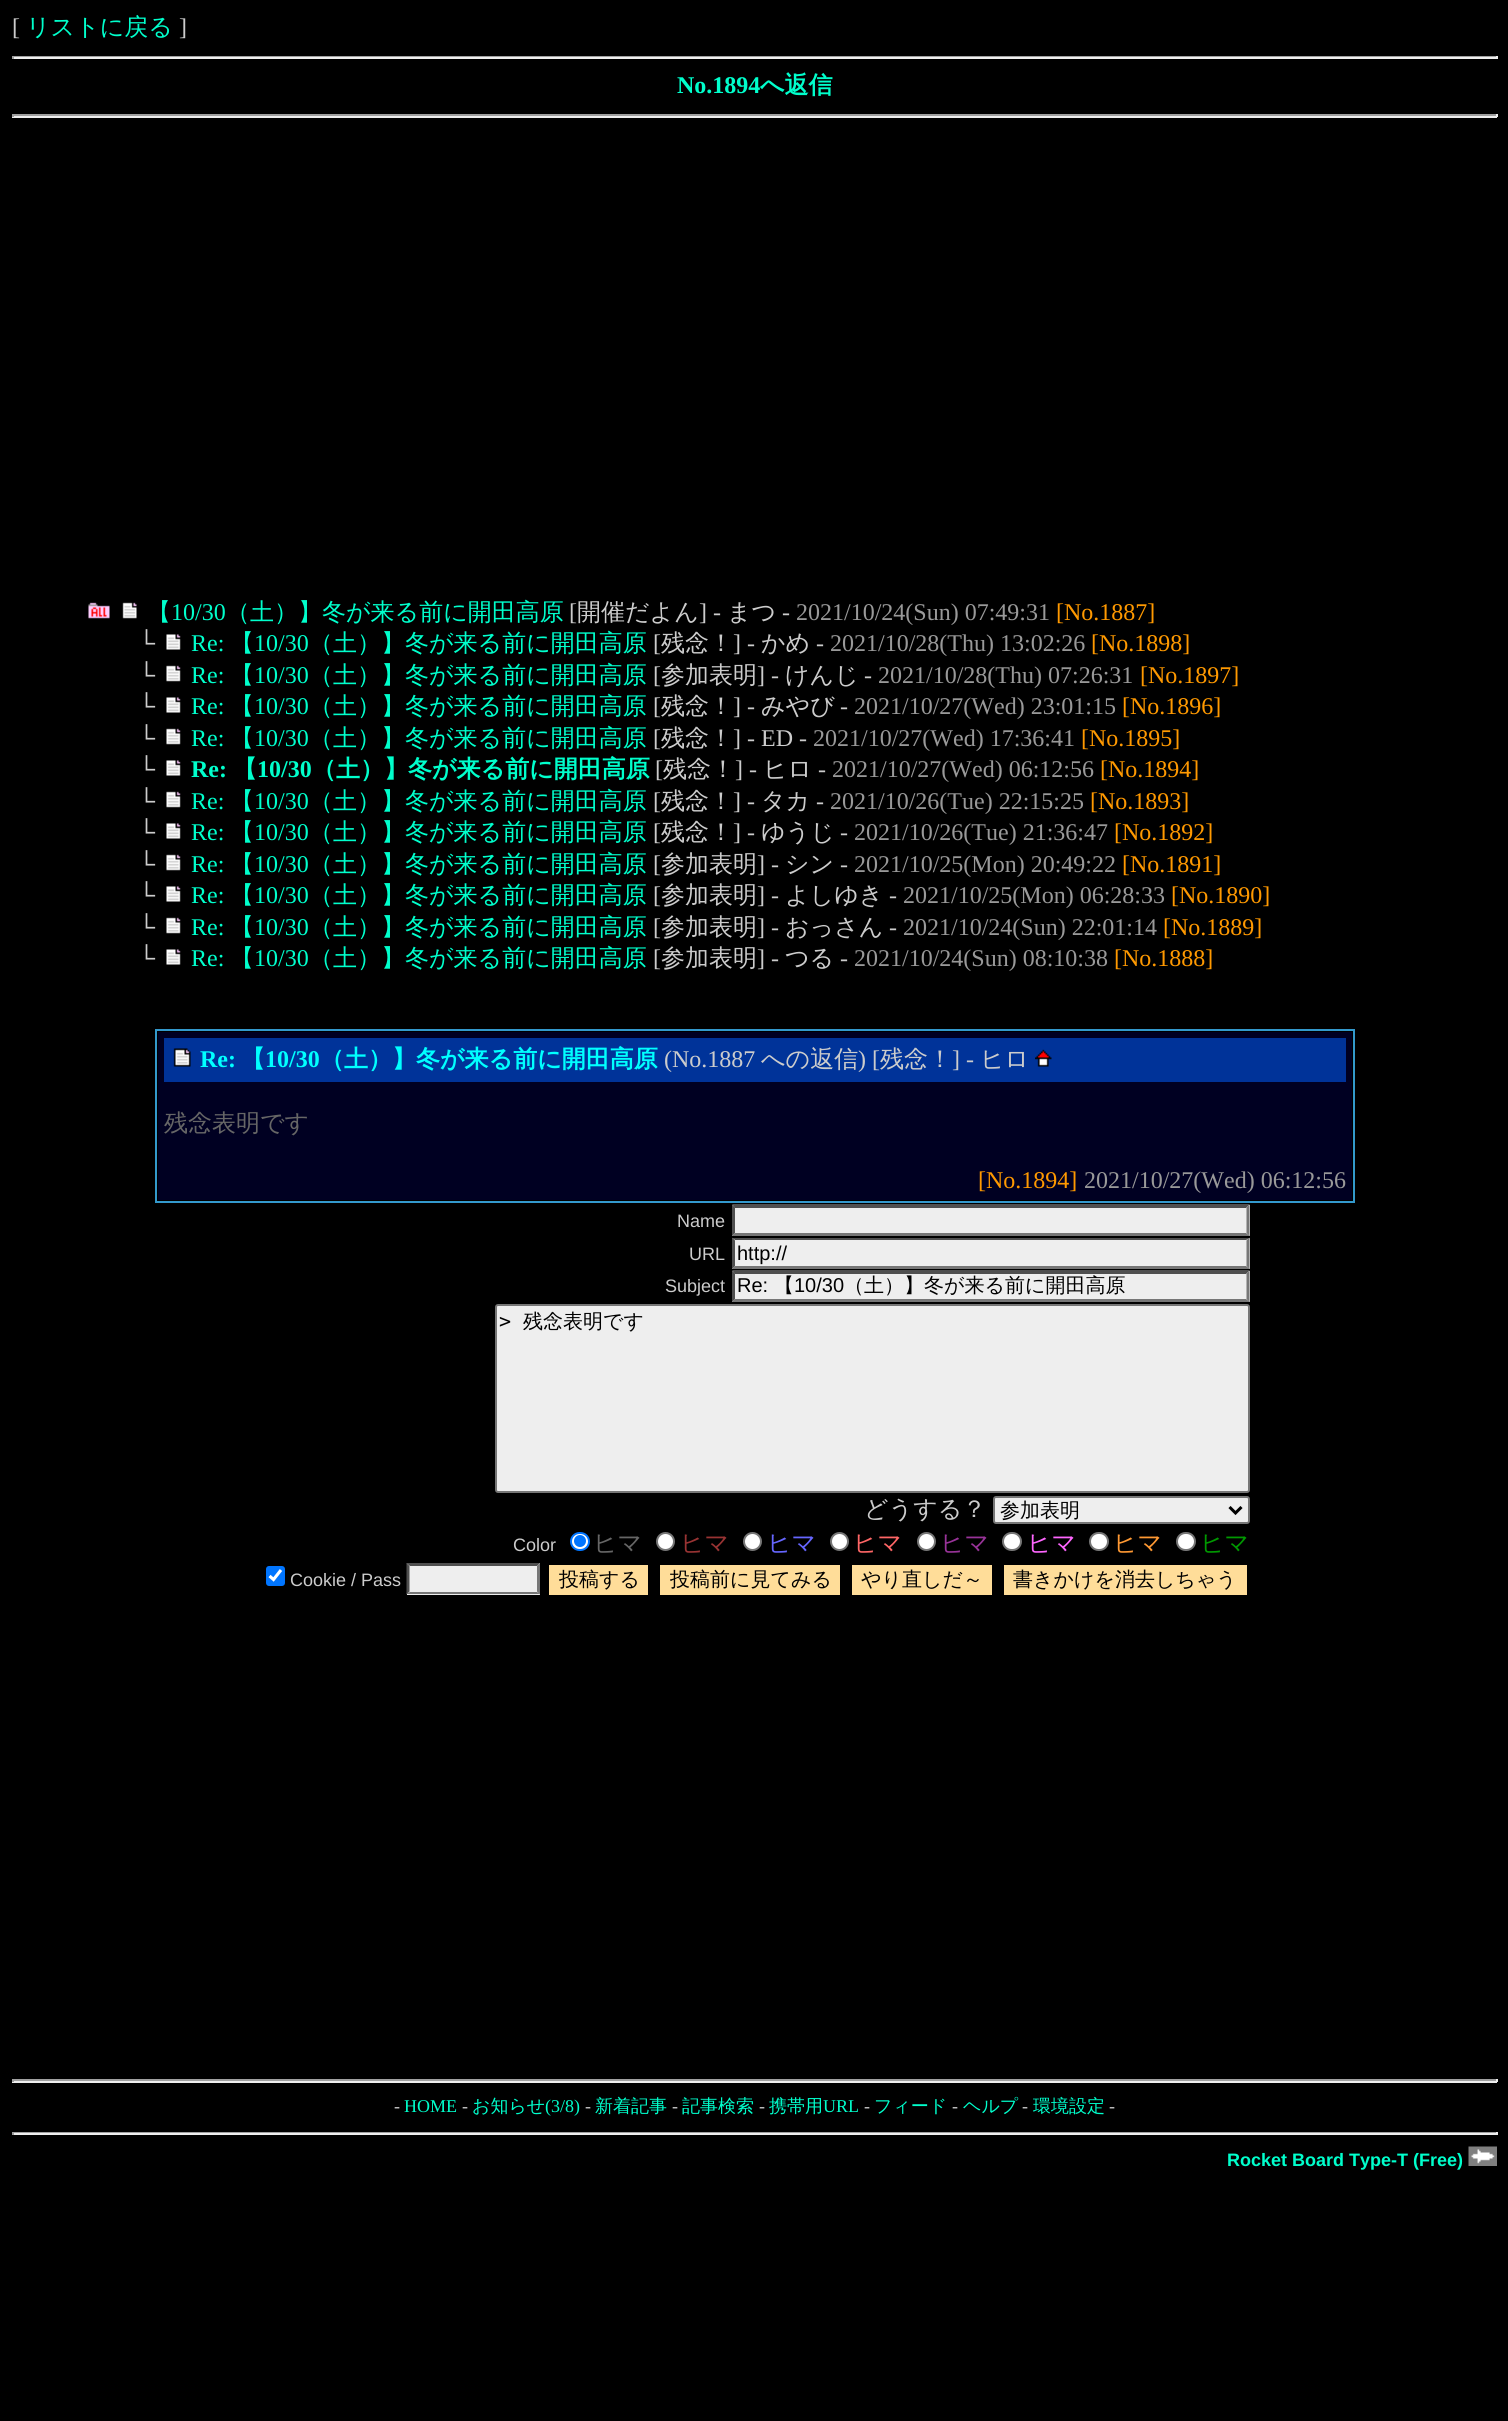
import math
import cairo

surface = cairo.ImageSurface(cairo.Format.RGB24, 1508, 2421)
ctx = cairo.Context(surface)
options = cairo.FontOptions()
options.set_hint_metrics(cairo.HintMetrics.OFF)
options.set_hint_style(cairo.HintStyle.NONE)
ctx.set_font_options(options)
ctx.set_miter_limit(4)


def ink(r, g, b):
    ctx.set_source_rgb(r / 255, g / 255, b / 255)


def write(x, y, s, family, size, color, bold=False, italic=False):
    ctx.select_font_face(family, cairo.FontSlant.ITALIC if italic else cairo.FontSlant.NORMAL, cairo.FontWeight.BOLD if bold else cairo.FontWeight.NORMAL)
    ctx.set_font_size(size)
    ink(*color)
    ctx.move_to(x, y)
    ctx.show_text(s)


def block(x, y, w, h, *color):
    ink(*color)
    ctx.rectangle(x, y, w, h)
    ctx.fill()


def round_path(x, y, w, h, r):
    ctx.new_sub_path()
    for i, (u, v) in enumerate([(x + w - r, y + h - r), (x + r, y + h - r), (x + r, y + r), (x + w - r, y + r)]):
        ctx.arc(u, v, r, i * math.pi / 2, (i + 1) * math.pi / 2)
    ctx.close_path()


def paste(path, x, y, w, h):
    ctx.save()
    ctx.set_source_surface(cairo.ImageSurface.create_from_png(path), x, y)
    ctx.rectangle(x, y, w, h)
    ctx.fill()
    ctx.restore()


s1 = dict(family="Liberation Serif", size=24, color=(204, 204, 204))
s2 = dict(family="WenQuanYi Zen Hei Medium", size=24, color=(0, 255, 204))
s3 = dict(family="Liberation Serif", size=24, color=(0, 255, 204), bold=True)
s4 = dict(family="WenQuanYi Zen Hei", size=24, color=(0, 255, 204), bold=True)
s5 = dict(family="Liberation Serif", size=24, color=(0, 255, 204))
s6 = dict(family="WenQuanYi Zen Hei Medium", size=24, color=(204, 204, 204))
s7 = dict(family="Liberation Serif", size=24, color=(153, 153, 153))
s8 = dict(family="Liberation Serif", size=24, color=(255, 153, 0))
s9 = dict(family="Liberation Serif", size=24, color=(0, 255, 255), bold=True)
s10 = dict(family="WenQuanYi Zen Hei", size=24, color=(0, 255, 255), bold=True)
s11 = dict(family="WenQuanYi Zen Hei Medium", size=24, color=(102, 102, 102))
s12 = dict(family="Liberation Sans", size=18, color=(204, 204, 204))
s13 = dict(family="Liberation Sans", size=20, color=(0, 0, 0))
s14 = dict(family="WenQuanYi Zen Hei Medium", size=20, color=(0, 0, 0))
s15 = dict(family="DejaVu Sans Mono", size=20, color=(0, 0, 0))
s16 = dict(family="WenQuanYi Zen Hei Medium", size=24, color=(153, 51, 51))
s17 = dict(family="WenQuanYi Zen Hei Medium", size=24, color=(102, 102, 255))
s18 = dict(family="WenQuanYi Zen Hei Medium", size=24, color=(255, 102, 102))
s19 = dict(family="WenQuanYi Zen Hei Medium", size=24, color=(153, 51, 153))
s20 = dict(family="WenQuanYi Zen Hei Medium", size=24, color=(255, 102, 255))
s21 = dict(family="WenQuanYi Zen Hei Medium", size=24, color=(255, 153, 51))
s22 = dict(family="WenQuanYi Zen Hei Medium", size=24, color=(0, 153, 0))
s23 = dict(family="Liberation Serif", size=18, color=(204, 204, 204))
s24 = dict(family="Liberation Serif", size=18, color=(0, 255, 204))
s25 = dict(family="WenQuanYi Zen Hei Medium", size=18, color=(0, 255, 204))
s26 = dict(family="Liberation Sans", size=18, color=(0, 255, 204), bold=True)

ink(0, 0, 0)
ctx.paint()
write(12, 35, "[", **s1)
write(26, 35, "リストに戻る", **s2)
write(179, 35, "]", **s1)
block(12, 56, 1485, 1, 159, 159, 159)
block(1496, 56, 2, 3, 238, 238, 238)
block(12, 57, 1485, 2, 238, 238, 238)
block(12, 56, 2, 3, 159, 159, 159)
write(677, 93, "No.1894", **s3)
write(760, 93, "へ返信", **s4)
block(12, 114, 1485, 2, 159, 159, 159)
block(1496, 114, 2, 3, 238, 238, 238)
block(12, 116, 1485, 2, 238, 238, 238)
block(12, 114, 2, 3, 159, 159, 159)
paste("pic1.png", 88, 602, 22, 17)
paste("pic2.png", 122, 602, 15, 17)
write(147, 620, "【", **s2)
write(171, 620, "10/30", **s5)
write(226, 620, "（土）】冬が来る前に開田高原", **s2)
write(569, 620, "[", **s1)
write(577, 620, "開催だよん", **s6)
write(699, 620, "] -", **s1)
write(727, 620, "まつ", **s6)
write(782, 620, "-", **s1)
write(796, 620, "2021/10/24(Sun) 07:49:31", **s7)
write(1056, 620, "[No.1887]", **s8)
write(138, 651, "└", **s1)
paste("pic3.png", 166, 634, 15, 16)
write(191, 651, "Re:", **s5)
write(230, 651, "【", **s2)
write(254, 651, "10/30", **s5)
write(309, 651, "（土）】冬が来る前に開田高原", **s2)
write(653, 651, "[", **s1)
write(661, 651, "残念！", **s6)
write(733, 651, "] -", **s1)
write(761, 651, "かめ", **s6)
write(816, 651, "-", **s1)
write(830, 651, "2021/10/28(Thu) 13:02:26", **s7)
write(1091, 651, "[No.1898]", **s8)
write(138, 683, "└", **s1)
paste("pic4.png", 166, 665, 15, 17)
write(191, 683, "Re:", **s5)
write(230, 683, "【", **s2)
write(254, 683, "10/30", **s5)
write(309, 683, "（土）】冬が来る前に開田高原", **s2)
write(653, 683, "[", **s1)
write(661, 683, "参加表明", **s6)
write(757, 683, "] -", **s1)
write(785, 683, "けんじ", **s6)
write(864, 683, "-", **s1)
write(878, 683, "2021/10/28(Thu) 07:26:31", **s7)
write(1140, 683, "[No.1897]", **s8)
write(138, 714, "└", **s1)
paste("pic3.png", 166, 697, 15, 16)
write(191, 714, "Re:", **s5)
write(230, 714, "【", **s2)
write(254, 714, "10/30", **s5)
write(309, 714, "（土）】冬が来る前に開田高原", **s2)
write(653, 714, "[", **s1)
write(661, 714, "残念！", **s6)
write(733, 714, "] -", **s1)
write(761, 714, "みやび", **s6)
write(840, 714, "-", **s1)
write(854, 714, "2021/10/27(Wed) 23:01:15", **s7)
write(1122, 714, "[No.1896]", **s8)
write(138, 746, "└", **s1)
paste("pic4.png", 166, 728, 15, 17)
write(191, 746, "Re:", **s5)
write(230, 746, "【", **s2)
write(254, 746, "10/30", **s5)
write(309, 746, "（土）】冬が来る前に開田高原", **s2)
write(653, 746, "[", **s1)
write(661, 746, "残念！", **s6)
write(733, 746, "] - ED -", **s1)
write(813, 746, "2021/10/27(Wed) 17:36:41", **s7)
write(1081, 746, "[No.1895]", **s8)
write(138, 777, "└", **s1)
paste("pic3.png", 166, 760, 15, 16)
write(191, 777, "Re:", **s3)
write(233, 777, "【", **s4)
write(257, 777, "10/30", **s3)
write(312, 777, "（土）】冬が来る前に開田高原", **s4)
write(655, 777, "[", **s1)
write(663, 777, "残念！", **s6)
write(735, 777, "] -", **s1)
write(763, 777, "ヒロ", **s6)
write(818, 777, "-", **s1)
write(832, 777, "2021/10/27(Wed) 06:12:56", **s7)
write(1100, 777, "[No.1894]", **s8)
write(138, 809, "└", **s1)
paste("pic4.png", 166, 791, 15, 17)
write(191, 809, "Re:", **s5)
write(230, 809, "【", **s2)
write(254, 809, "10/30", **s5)
write(309, 809, "（土）】冬が来る前に開田高原", **s2)
write(653, 809, "[", **s1)
write(661, 809, "残念！", **s6)
write(733, 809, "] -", **s1)
write(761, 809, "タカ", **s6)
write(816, 809, "-", **s1)
write(830, 809, "2021/10/26(Tue) 22:15:25", **s7)
write(1090, 809, "[No.1893]", **s8)
write(138, 840, "└", **s1)
paste("pic3.png", 166, 823, 15, 16)
write(191, 840, "Re:", **s5)
write(230, 840, "【", **s2)
write(254, 840, "10/30", **s5)
write(309, 840, "（土）】冬が来る前に開田高原", **s2)
write(653, 840, "[", **s1)
write(661, 840, "残念！", **s6)
write(733, 840, "] -", **s1)
write(761, 840, "ゆうじ", **s6)
write(840, 840, "-", **s1)
write(854, 840, "2021/10/26(Tue) 21:36:47", **s7)
write(1114, 840, "[No.1892]", **s8)
write(138, 872, "└", **s1)
paste("pic4.png", 166, 854, 15, 17)
write(191, 872, "Re:", **s5)
write(230, 872, "【", **s2)
write(254, 872, "10/30", **s5)
write(309, 872, "（土）】冬が来る前に開田高原", **s2)
write(653, 872, "[", **s1)
write(661, 872, "参加表明", **s6)
write(757, 872, "] -", **s1)
write(785, 872, "シン", **s6)
write(840, 872, "-", **s1)
write(854, 872, "2021/10/25(Mon) 20:49:22", **s7)
write(1122, 872, "[No.1891]", **s8)
write(138, 903, "└", **s1)
paste("pic3.png", 166, 886, 15, 16)
write(191, 903, "Re:", **s5)
write(230, 903, "【", **s2)
write(254, 903, "10/30", **s5)
write(309, 903, "（土）】冬が来る前に開田高原", **s2)
write(653, 903, "[", **s1)
write(661, 903, "参加表明", **s6)
write(757, 903, "] -", **s1)
write(785, 903, "よしゆき", **s6)
write(889, 903, "-", **s1)
write(903, 903, "2021/10/25(Mon) 06:28:33", **s7)
write(1171, 903, "[No.1890]", **s8)
write(138, 935, "└", **s1)
paste("pic4.png", 166, 917, 15, 17)
write(191, 935, "Re:", **s5)
write(230, 935, "【", **s2)
write(254, 935, "10/30", **s5)
write(309, 935, "（土）】冬が来る前に開田高原", **s2)
write(653, 935, "[", **s1)
write(661, 935, "参加表明", **s6)
write(757, 935, "] -", **s1)
write(785, 935, "おっさん", **s6)
write(889, 935, "-", **s1)
write(903, 935, "2021/10/24(Sun) 22:01:14", **s7)
write(1163, 935, "[No.1889]", **s8)
write(138, 966, "└", **s1)
paste("pic3.png", 166, 949, 15, 16)
write(191, 966, "Re:", **s5)
write(230, 966, "【", **s2)
write(254, 966, "10/30", **s5)
write(309, 966, "（土）】冬が来る前に開田高原", **s2)
write(653, 966, "[", **s1)
write(661, 966, "参加表明", **s6)
write(757, 966, "] -", **s1)
write(785, 966, "つる", **s6)
write(840, 966, "-", **s1)
write(854, 966, "2021/10/24(Sun) 08:10:38", **s7)
write(1114, 966, "[No.1888]", **s8)
ctx.rectangle(156, 1030, 1198, 172)
ink(51, 153, 204)
ctx.stroke()
block(158, 1032, 1194, 168, 0, 0, 34)
block(164, 1038, 1182, 44, 0, 51, 153)
paste("pic5.png", 173, 1048, 18, 19)
write(200, 1067, "Re:", **s9)
write(241, 1067, "【", **s10)
write(265, 1067, "10/30", **s9)
write(320, 1067, "（土）】冬が来る前に開田高原", **s10)
write(664, 1067, "(No.1887", **s1)
write(761, 1067, "への返信", **s6)
write(858, 1067, ") [", **s1)
write(880, 1067, "残念！", **s6)
write(952, 1067, "] -", **s1)
write(980, 1067, "ヒロ", **s6)
paste("pic6.png", 1035, 1049, 17, 18)
write(164, 1131, "残念表明です", **s11)
write(978, 1188, "[No.1894]", **s8)
write(1084, 1188, "2021/10/27(Wed) 06:12:56", **s7)
write(677, 1227, "Name", **s12)
block(732, 1205, 518, 31, 238, 238, 238)
ink(79, 79, 79)
ctx.new_path()
ctx.move_to(732, 1204)
ctx.line_to(1250, 1204)
ctx.line_to(1246, 1208)
ctx.line_to(735, 1208)
ctx.close_path()
ctx.fill()
ink(118, 118, 118)
ctx.new_path()
ctx.move_to(1249.5, 1204.5)
ctx.line_to(1249.5, 1236)
ctx.line_to(1246.5, 1233)
ctx.line_to(1246.5, 1207.5)
ctx.close_path()
ctx.fill()
ctx.new_path()
ctx.move_to(1250, 1236)
ctx.line_to(732, 1236)
ctx.line_to(735, 1233)
ctx.line_to(1246, 1233)
ctx.close_path()
ctx.fill()
ink(79, 79, 79)
ctx.new_path()
ctx.move_to(732, 1236)
ctx.line_to(732, 1204.5)
ctx.line_to(735, 1207.5)
ctx.line_to(735, 1233)
ctx.close_path()
ctx.fill()
write(689, 1260, "URL", **s12)
block(732, 1238, 518, 31, 238, 238, 238)
ink(79, 79, 79)
ctx.new_path()
ctx.move_to(732, 1238)
ctx.line_to(1250, 1238)
ctx.line_to(1246, 1240)
ctx.line_to(735, 1240)
ctx.close_path()
ctx.fill()
ink(118, 118, 118)
ctx.new_path()
ctx.move_to(1249.5, 1237.5)
ctx.line_to(1249.5, 1269)
ctx.line_to(1246.5, 1266)
ctx.line_to(1246.5, 1240.5)
ctx.close_path()
ctx.fill()
ctx.new_path()
ctx.move_to(1250, 1269)
ctx.line_to(732, 1269)
ctx.line_to(735, 1266)
ctx.line_to(1246, 1266)
ctx.close_path()
ctx.fill()
ink(79, 79, 79)
ctx.new_path()
ctx.move_to(732, 1269)
ctx.line_to(732, 1237.5)
ctx.line_to(735, 1240.5)
ctx.line_to(735, 1266)
ctx.close_path()
ctx.fill()
write(737, 1260, "http://", **s13)
write(665, 1292, "Subject", **s12)
block(732, 1271, 518, 31, 238, 238, 238)
ink(79, 79, 79)
ctx.new_path()
ctx.move_to(732, 1270)
ctx.line_to(1250, 1270)
ctx.line_to(1246, 1274)
ctx.line_to(735, 1274)
ctx.close_path()
ctx.fill()
ink(118, 118, 118)
ctx.new_path()
ctx.move_to(1249.5, 1270.5)
ctx.line_to(1249.5, 1302)
ctx.line_to(1246.5, 1299)
ctx.line_to(1246.5, 1273.5)
ctx.close_path()
ctx.fill()
ctx.new_path()
ctx.move_to(1250, 1302)
ctx.line_to(732, 1302)
ctx.line_to(735, 1299)
ctx.line_to(1246, 1299)
ctx.close_path()
ctx.fill()
ink(79, 79, 79)
ctx.new_path()
ctx.move_to(732, 1302)
ctx.line_to(732, 1270.5)
ctx.line_to(735, 1273.5)
ctx.line_to(735, 1299)
ctx.close_path()
ctx.fill()
write(737, 1292, "Re:", **s13)
write(774, 1292, "【", **s14)
write(794, 1292, "10/30", **s13)
write(844, 1292, "（土）】冬が来る前に開田高原", **s14)
ink(238, 238, 238)
round_path(496, 1305, 753, 187, 2)
ctx.fill_preserve()
ink(118, 118, 118)
ctx.stroke()
write(499, 1328, ">", **s15)
write(523, 1328, "残念表明です", **s14)
write(864, 1517, "どうする？", **s6)
ink(238, 238, 238)
round_path(994, 1497, 255, 26, 2)
ctx.fill_preserve()
ink(118, 118, 118)
ctx.stroke()
ctx.new_path()
ctx.move_to(1229.5, 1507)
ctx.line_to(1235.5, 1513)
ctx.line_to(1241.5, 1507)
ink(0, 0, 0)
ctx.set_line_width(3)
ctx.stroke()
write(1000, 1517, "参加表明", **s14)
write(513, 1551, "Color", **s12)
ink(255, 255, 255)
round_path(571, 1533, 18, 17, 8.5)
ctx.fill_preserve()
ink(0, 117, 255)
ctx.set_line_width(2)
ctx.stroke()
ctx.arc(580, 1541, 6, 0, 2 * math.pi)
ctx.fill()
write(593, 1551, "ヒマ", **s11)
ink(255, 255, 255)
ctx.new_path()
ctx.arc(665.5, 1541.5, 8.5, 0, 2 * math.pi)
ctx.fill_preserve()
ink(118, 118, 118)
ctx.stroke()
write(680, 1551, "ヒマ", **s16)
ink(255, 255, 255)
ctx.new_path()
ctx.arc(752.5, 1541.5, 8.5, 0, 2 * math.pi)
ctx.fill_preserve()
ink(118, 118, 118)
ctx.stroke()
write(767, 1551, "ヒマ", **s17)
ink(255, 255, 255)
ctx.new_path()
ctx.arc(839.5, 1541.5, 8.5, 0, 2 * math.pi)
ctx.fill_preserve()
ink(118, 118, 118)
ctx.stroke()
write(853, 1551, "ヒマ", **s18)
ink(255, 255, 255)
ctx.new_path()
ctx.arc(926.5, 1541.5, 8.5, 0, 2 * math.pi)
ctx.fill_preserve()
ink(118, 118, 118)
ctx.stroke()
write(940, 1551, "ヒマ", **s19)
ink(255, 255, 255)
round_path(1003, 1533, 18, 17, 8.5)
ctx.fill_preserve()
ink(118, 118, 118)
ctx.stroke()
write(1027, 1551, "ヒマ", **s20)
ink(255, 255, 255)
round_path(1090, 1533, 18, 17, 8.5)
ctx.fill_preserve()
ink(118, 118, 118)
ctx.stroke()
write(1113, 1551, "ヒマ", **s21)
ink(255, 255, 255)
round_path(1177, 1533, 18, 17, 8.5)
ctx.fill_preserve()
ink(118, 118, 118)
ctx.stroke()
write(1200, 1551, "ヒマ", **s22)
ink(0, 117, 255)
round_path(266, 1566, 19, 20, 3)
ctx.fill()
ctx.new_path()
ctx.move_to(269.5, 1576)
ctx.line_to(273.5, 1579.5)
ctx.line_to(281, 1570)
ink(255, 255, 255)
ctx.set_line_width(3.1)
ctx.stroke()
write(290, 1586, "Cookie / Pass", **s12)
block(407, 1563, 133, 32, 238, 238, 238)
ink(79, 79, 79)
ctx.new_path()
ctx.move_to(406, 1563)
ctx.line_to(540, 1563)
ctx.line_to(537, 1566)
ctx.line_to(410, 1566)
ctx.close_path()
ctx.fill()
ink(118, 118, 118)
ctx.new_path()
ctx.move_to(540, 1563)
ctx.line_to(540, 1594.5)
ctx.line_to(537, 1591.5)
ctx.line_to(537, 1566)
ctx.close_path()
ctx.fill()
ctx.new_path()
ctx.move_to(540, 1594)
ctx.line_to(406, 1594)
ctx.line_to(410, 1592)
ctx.line_to(537, 1592)
ctx.close_path()
ctx.fill()
ink(79, 79, 79)
ctx.new_path()
ctx.move_to(406.5, 1594.5)
ctx.line_to(406.5, 1563)
ctx.line_to(409.5, 1566)
ctx.line_to(409.5, 1591.5)
ctx.close_path()
ctx.fill()
block(549, 1565, 99, 30, 255, 221, 153)
write(559, 1586, "投稿する", **s14)
block(660, 1565, 180, 30, 255, 221, 153)
write(670, 1586, "投稿前に見てみる", **s14)
block(852, 1565, 140, 30, 255, 221, 153)
write(861, 1586, "やり直しだ～", **s14)
block(1004, 1565, 243, 30, 255, 221, 153)
write(1013, 1586, "書きかけを消去しちゃう", **s14)
block(12, 2079, 1485, 2, 159, 159, 159)
block(1496, 2079, 2, 3, 238, 238, 238)
block(12, 2081, 1485, 2, 238, 238, 238)
block(12, 2079, 2, 3, 159, 159, 159)
write(394, 2112, "-", **s23)
write(404, 2112, "HOME", **s24)
write(462, 2112, "-", **s23)
write(472, 2112, "お知らせ", **s25)
write(545, 2112, "(3/8)", **s24)
write(585, 2112, "-", **s23)
write(595, 2112, "新着記事", **s25)
write(672, 2112, "-", **s23)
write(682, 2112, "記事検索", **s25)
write(759, 2112, "-", **s23)
write(769, 2112, "携帯用", **s25)
write(823, 2112, "URL", **s24)
write(864, 2112, "-", **s23)
write(874, 2112, "フィード", **s25)
write(952, 2112, "-", **s23)
write(963, 2112, "ヘルプ", **s25)
write(1022, 2112, "-", **s23)
write(1033, 2112, "環境設定", **s25)
write(1109, 2112, "-", **s23)
block(12, 2132, 1485, 1, 159, 159, 159)
block(1496, 2132, 2, 3, 238, 238, 238)
block(12, 2133, 1485, 2, 238, 238, 238)
block(12, 2132, 2, 3, 159, 159, 159)
write(1227, 2166, "Rocket Board Type-T (Free)", **s26)
paste("pic7.png", 1468, 2146, 29, 20)
surface.write_to_png("screenshot.png")
